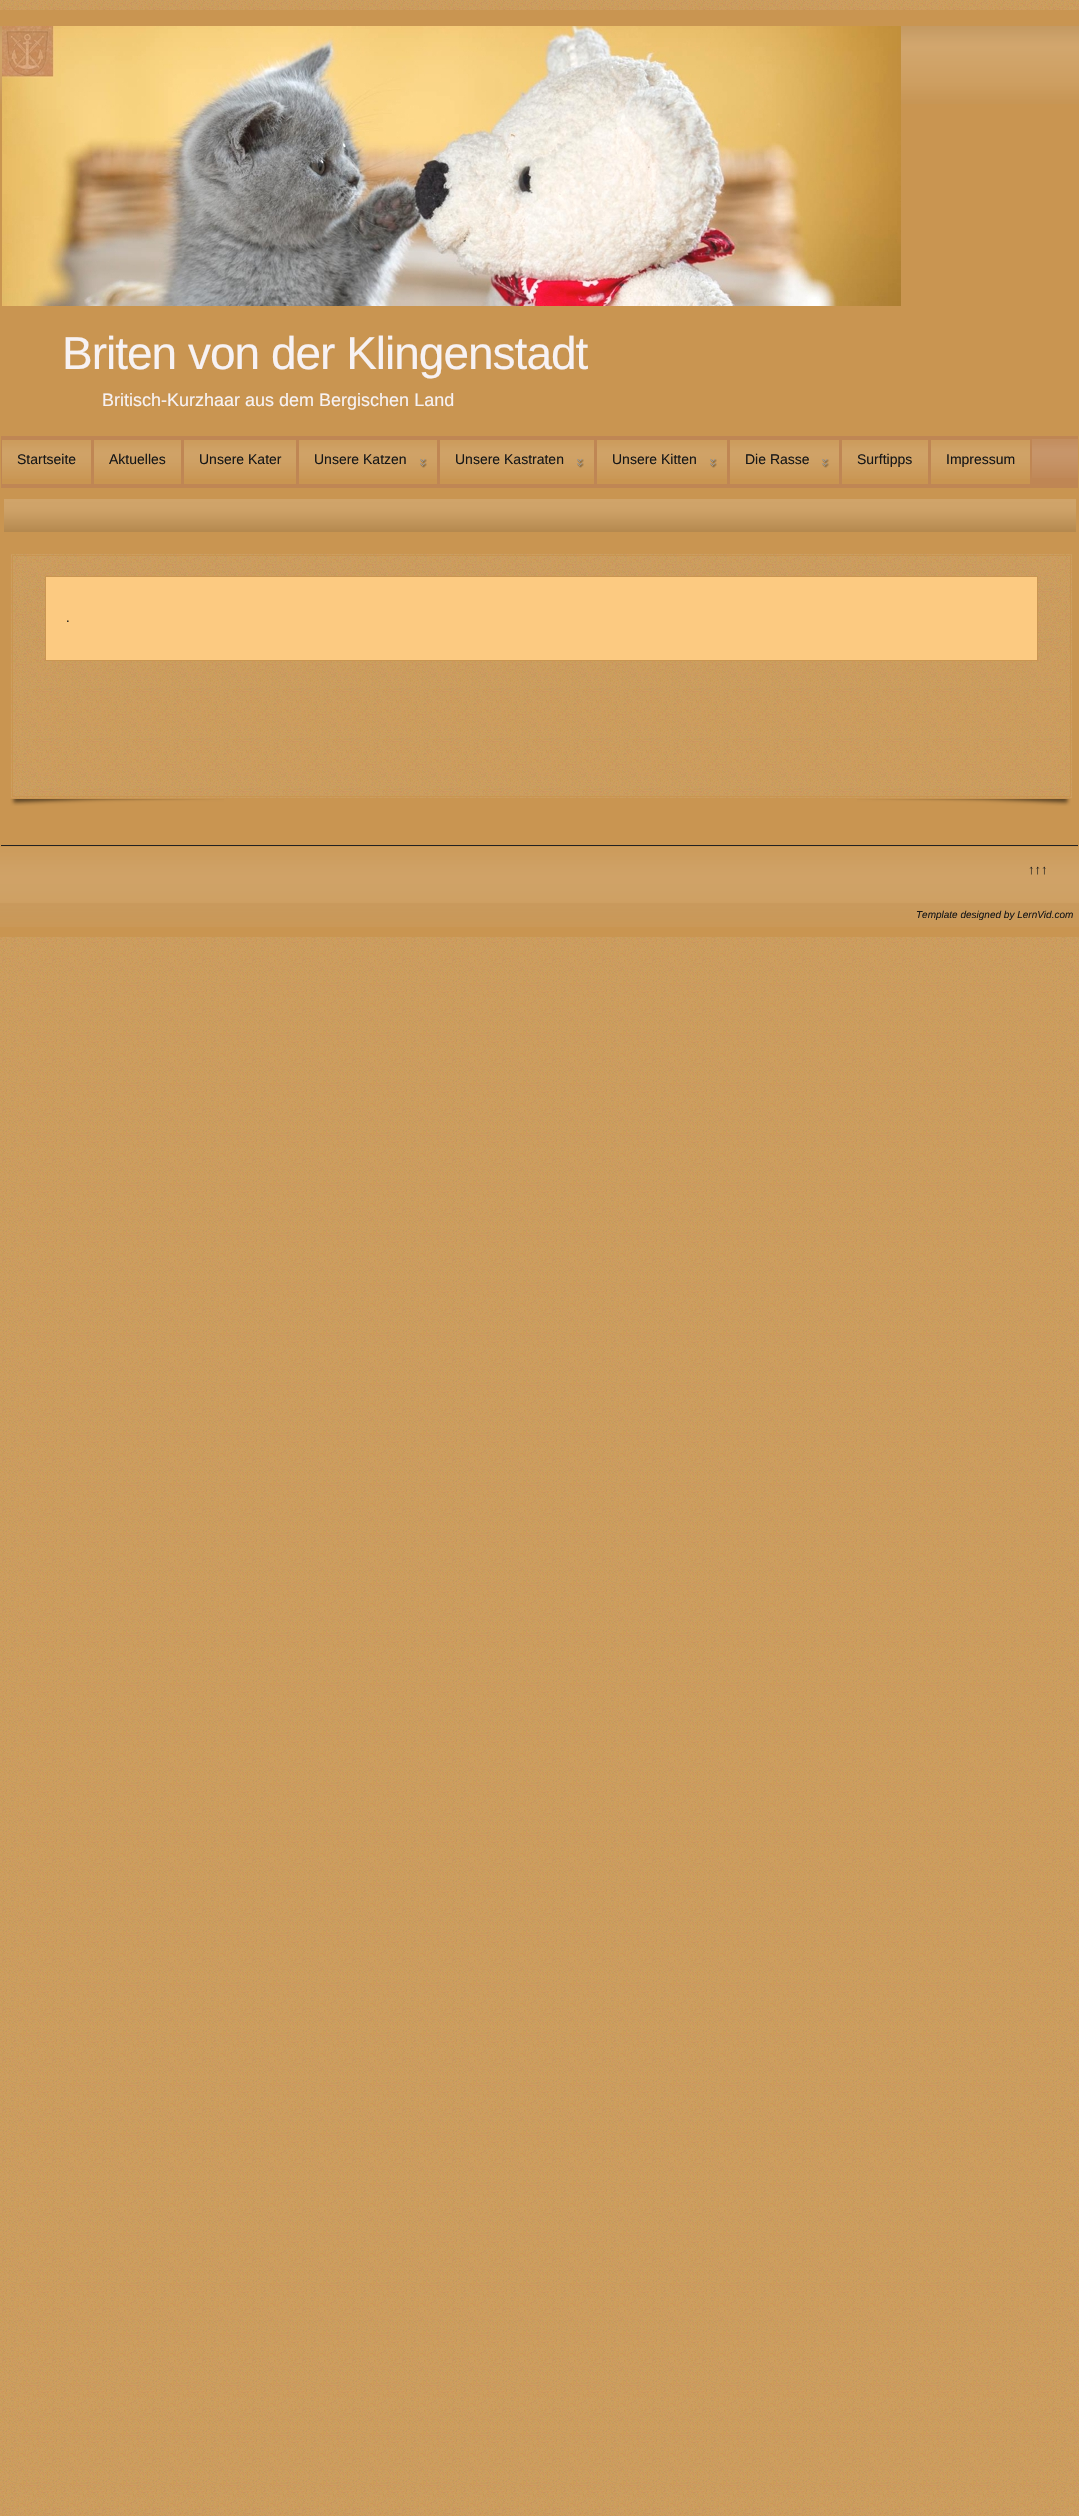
void draw(SkCanvas* canvas) {
    SkPaint paint;
    paint.setAntiAlias(true);
    auto face = [&](const char* family, int weight, float size, bool italic = false) {
        SkFontStyle style(weight, SkFontStyle::kNormal_Width,
            italic ? SkFontStyle::kItalic_Slant : SkFontStyle::kUpright_Slant);
        SkFont result(fontMgr->matchFamilyStyle(family, style), size);
        result.setSubpixel(true);
        return result;
    };
    auto write = [&](const char* s, float x, float y, const SkFont& font, SkColor color) {
        SkPaint ink(SkColor4f::FromColor(color));
        ink.setAntiAlias(true);
        canvas->drawString(s, x, y, font, ink);
    };
    auto writeSpaced = [&](const char* s, float x, float y, const SkFont& font, const SkPaint& ink, float letter, float word) {
        std::vector<SkGlyphID> glyphs(font.countText(s, strlen(s), SkTextEncoding::kUTF8));
        std::vector<float> xs(glyphs.size());
        font.textToGlyphs(s, strlen(s), SkTextEncoding::kUTF8, glyphs);
        font.getXPos(glyphs, xs, x);
        float extra = 0;
        for (size_t i = 0; i < glyphs.size(); i++) {
            xs[i] += extra;
            extra += letter + word * (glyphs[i] == font.unicharToGlyph(' '));
        }
        canvas->drawTextBlob(SkTextBlob::MakeFromPosHGlyphs(glyphs, xs, y, font), 0, 0, ink);
    };
    auto block = [&](float x, float y, float w, float h, SkColor color) {
        SkPaint ink(SkColor4f::FromColor(color));
        ink.setAntiAlias(true);
        canvas->drawRect(SkRect::MakeXYWH(x, y, w, h), ink);
    };
    auto paste = [&](const char* path, float x, float y, float w, float h) {
        auto image = SkImages::DeferredFromEncodedData(SkData::MakeFromFileName(path));
        canvas->drawImageRect(image, SkRect::MakeXYWH(x, y, w, h), SkSamplingOptions());
    };
    canvas->clear(SkColorSetRGB(201, 149, 81));
    paste("pic1.png", 0, 0, 1079, 2516);
    block(0, 10, 1079, 927, SkColorSetRGB(201, 149, 81));
    paste("pic2.png", 0, 26, 1079, 78);
    paste("pic3.png", 2, 26, 899, 280);
    auto kFont1 = face("Liberation Sans", 400, 46);
    paint.setColor(SkColorSetRGB(247, 242, 243));
    writeSpaced("Briten von der Klingenstadt", 62, 369, kFont1, paint, -1, 0);
    auto kFont2 = face("Liberation Sans", 400, 18);
    write("Britisch-Kurzhaar aus dem Bergischen Land", 102, 406, kFont2, SkColorSetRGB(247, 242, 243));
    block(1, 436, 1077, 52, SkColorSetRGB(191, 134, 84));
    paste("pic4.png", 1032, 439, 46, 39);
    block(2, 440, 89, 44, SkColorSetRGB(201, 149, 81));
    paste("pic5.png", 2, 440, 89, 39);
    auto kFont3 = face("Liberation Sans", 400, 14);
    write("Startseite", 17, 464, kFont3, SkColorSetRGB(23, 23, 23));
    block(94, 440, 87, 44, SkColorSetRGB(201, 149, 81));
    paste("pic6.png", 94, 440, 87, 39);
    write("Aktuelles", 109, 464, kFont3, SkColorSetRGB(23, 23, 23));
    block(184, 440, 112, 44, SkColorSetRGB(201, 149, 81));
    paste("pic7.png", 184, 440, 112, 39);
    write("Unsere Kater", 199, 464, kFont3, SkColorSetRGB(23, 23, 23));
    block(299, 440, 138, 44, SkColorSetRGB(201, 149, 81));
    paste("pic8.png", 299, 440, 138, 39);
    write("Unsere Katzen", 314, 464, kFont3, SkColorSetRGB(23, 23, 23));
    block(440, 440, 154, 44, SkColorSetRGB(201, 149, 81));
    paste("pic9.png", 440, 440, 154, 39);
    write("Unsere Kastraten", 455, 464, kFont3, SkColorSetRGB(23, 23, 23));
    block(597, 440, 130, 44, SkColorSetRGB(201, 149, 81));
    paste("pic10.png", 597, 440, 130, 39);
    write("Unsere Kitten", 612, 464, kFont3, SkColorSetRGB(23, 23, 23));
    block(730, 440, 109, 44, SkColorSetRGB(201, 149, 81));
    paste("pic11.png", 730, 440, 109, 39);
    write("Die Rasse", 745, 464, kFont3, SkColorSetRGB(23, 23, 23));
    block(842, 440, 86, 44, SkColorSetRGB(201, 149, 81));
    paste("pic12.png", 842, 440, 86, 39);
    write("Surftipps", 857, 464, kFont3, SkColorSetRGB(23, 23, 23));
    block(931, 440, 99, 44, SkColorSetRGB(201, 149, 81));
    paste("pic13.png", 931, 440, 99, 39);
    write("Impressum", 946, 464, kFont3, SkColorSetRGB(23, 23, 23));
    paste("pic14.png", 4, 499, 1072, 33);
    paste("pic15.png", 11, 554, 1061, 244);
    paint.setStyle(SkPaint::kStroke_Style);
    paint.setStrokeWidth(1);
    paint.setColor(SkColorSetRGB(201, 149, 81));
    canvas->drawRect(SkRect::MakeXYWH(12.5f, 555.5f, 1058, 241), paint);
    paint.setStyle(SkPaint::kFill_Style);
    paint.setColor(SkColorSetRGB(252, 202, 129));
    canvas->drawRect(SkRect::MakeXYWH(45.5f, 576.5f, 992, 84), paint);
    paint.setStyle(SkPaint::kStroke_Style);
    paint.setColor(SkColorSetRGB(201, 149, 81));
    canvas->drawRect(SkRect::MakeXYWH(45.5f, 576.5f, 992, 84), paint);
    auto kFont4 = face("Liberation Sans", 400, 13);
    write(".", 66, 622, kFont4, SkColorSetRGB(23, 23, 23));
    paste("pic16.png", 10, 799, 214, 7);
    paste("pic17.png", 857, 799, 214, 7);
    block(1, 845, 1077, 1, SkColorSetRGB(34, 34, 34));
    paste("pic18.png", 0, 847, 1079, 80);
    write("↑↑↑", 1028, 874, kFont4, SkColorSetRGB(23, 23, 23));
    auto kFont5 = face("Liberation Sans", 400, 10, true);
    write("Template designed by LernVid.com", 916, 918, kFont5, SkColorSetRGB(23, 23, 23));
}
